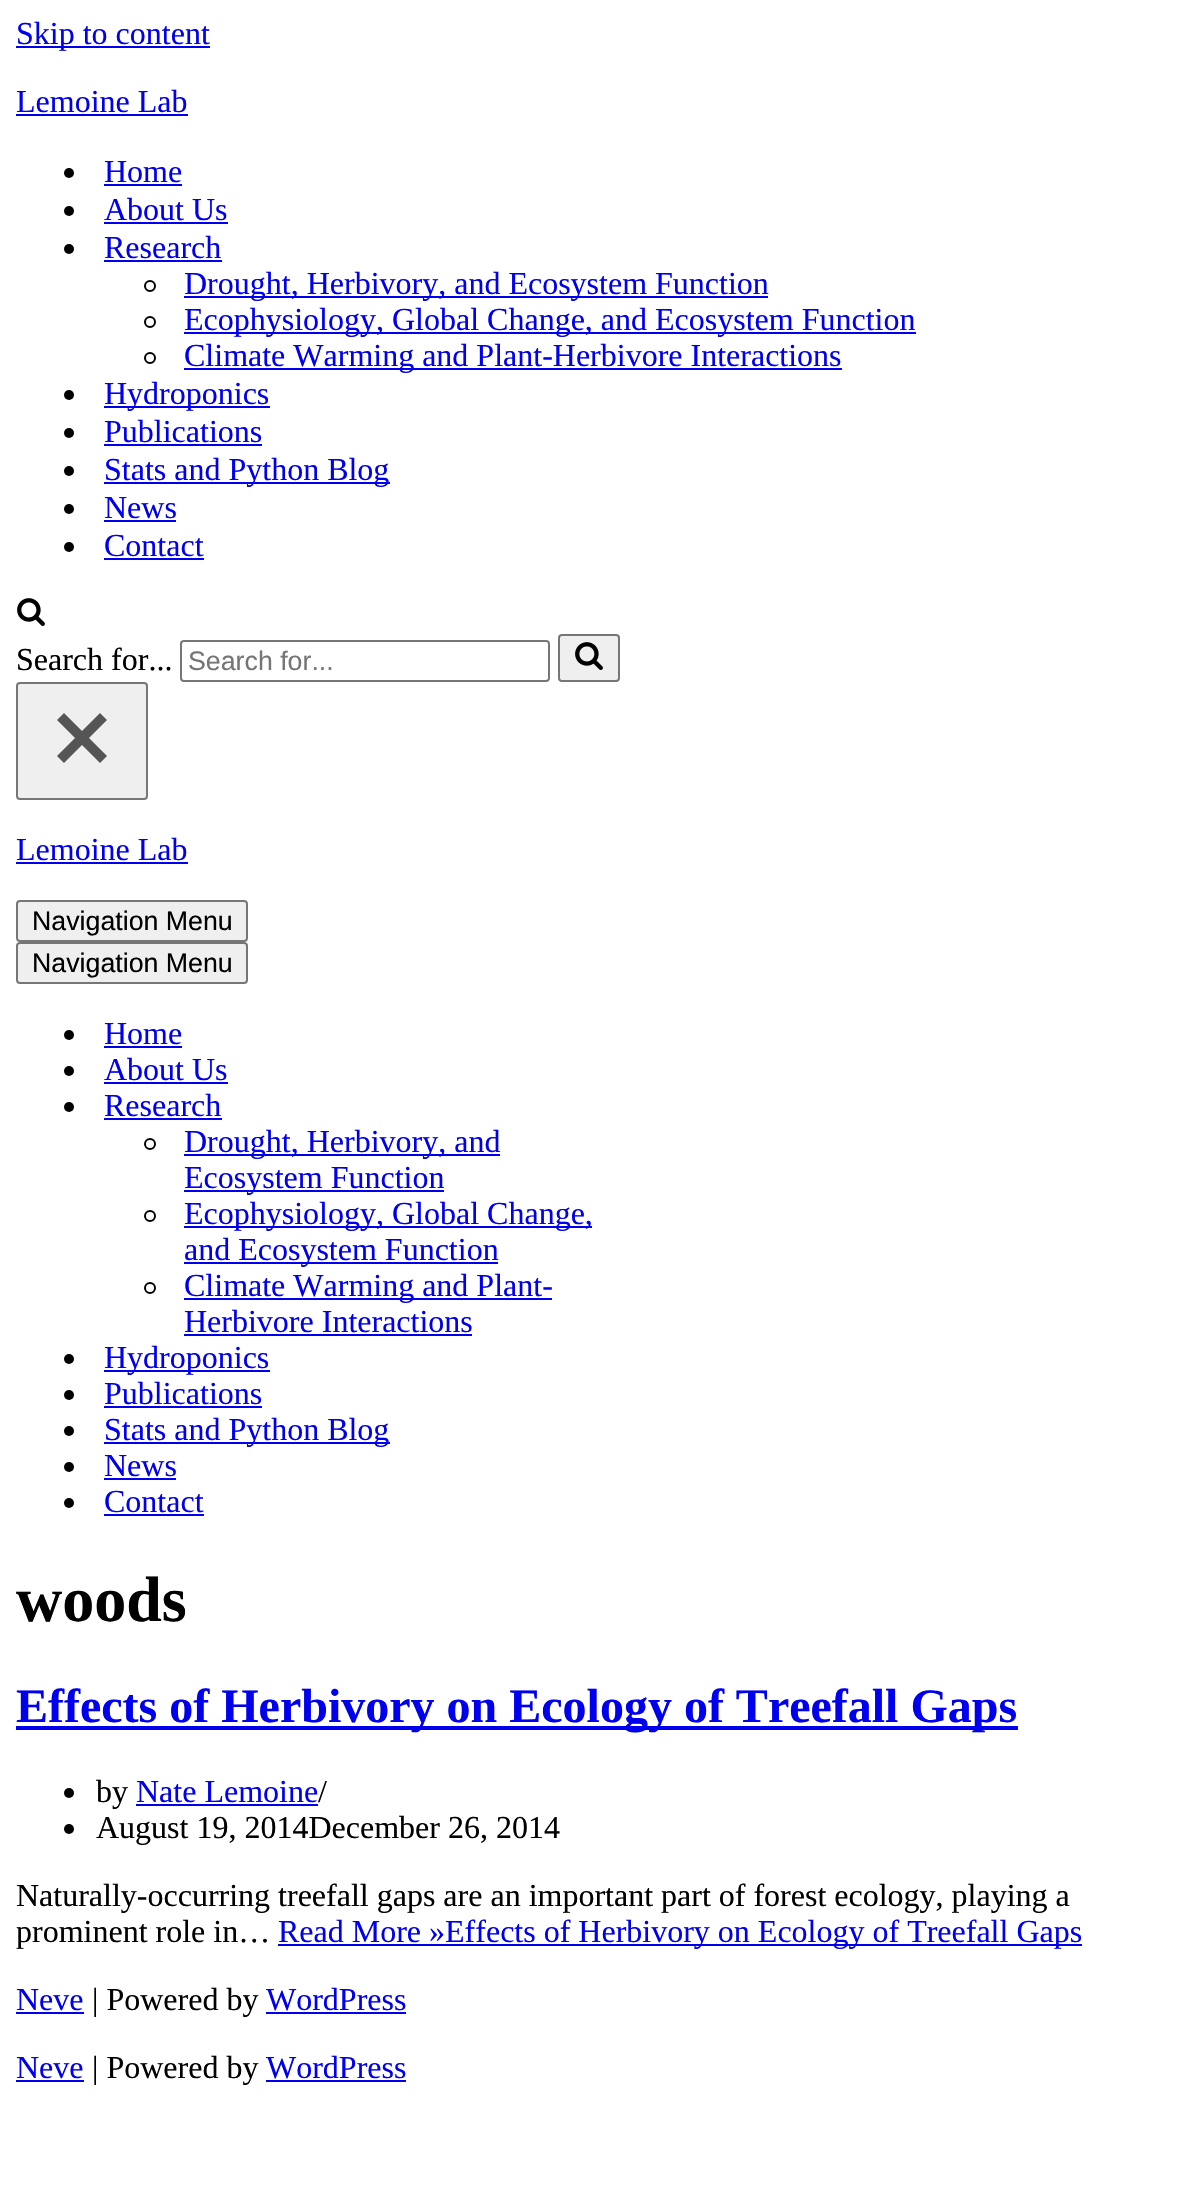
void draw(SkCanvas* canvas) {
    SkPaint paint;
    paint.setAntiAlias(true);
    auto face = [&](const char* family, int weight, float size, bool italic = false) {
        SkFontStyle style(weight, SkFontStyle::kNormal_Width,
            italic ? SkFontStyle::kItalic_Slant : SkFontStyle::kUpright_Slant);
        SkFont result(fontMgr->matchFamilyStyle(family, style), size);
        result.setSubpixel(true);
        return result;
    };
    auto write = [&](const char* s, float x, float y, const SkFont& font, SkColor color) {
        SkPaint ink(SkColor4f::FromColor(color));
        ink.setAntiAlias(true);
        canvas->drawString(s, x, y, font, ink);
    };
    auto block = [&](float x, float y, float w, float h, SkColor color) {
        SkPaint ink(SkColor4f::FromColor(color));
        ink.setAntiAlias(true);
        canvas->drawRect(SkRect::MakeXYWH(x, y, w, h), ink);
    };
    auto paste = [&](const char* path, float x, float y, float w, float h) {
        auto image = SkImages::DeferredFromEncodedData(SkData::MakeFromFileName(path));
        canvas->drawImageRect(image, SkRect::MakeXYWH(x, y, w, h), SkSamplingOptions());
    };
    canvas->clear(SK_ColorWHITE);
    block(16, 46, 194, 2, SkColorSetRGB(0, 0, 238));
    auto kFont1 = face("Liberation Serif", 400, 32);
    write("Skip to content", 16, 44, kFont1, SkColorSetRGB(0, 0, 238));
    write("Lemoine Lab", 16, 112, kFont1, SkColorSetRGB(0, 0, 238));
    block(16, 114, 172, 2, SkColorSetRGB(0, 0, 238));
    paint.setColor(SK_ColorBLACK);
    canvas->drawCircle(69, 173, 5, paint);
    write("Home", 104, 182, kFont1, SkColorSetRGB(0, 0, 238));
    block(104, 184, 78, 2, SkColorSetRGB(0, 0, 238));
    canvas->drawCircle(69, 211, 5, paint);
    write("About Us", 104, 220, kFont1, SkColorSetRGB(0, 0, 238));
    block(104, 222, 124, 2, SkColorSetRGB(0, 0, 238));
    canvas->drawCircle(69, 249, 5, paint);
    write("Research", 104, 258, kFont1, SkColorSetRGB(0, 0, 238));
    block(104, 260, 118, 2, SkColorSetRGB(0, 0, 238));
    paint.setStyle(SkPaint::kStroke_Style);
    paint.setStrokeWidth(2);
    canvas->drawCircle(150, 286, 5, paint);
    block(184, 296, 584, 2, SkColorSetRGB(0, 0, 238));
    write("Drought, Herbivory, and Ecosystem Function", 184, 294, kFont1, SkColorSetRGB(0, 0, 238));
    canvas->drawCircle(150, 322, 5, paint);
    block(184, 332, 732, 2, SkColorSetRGB(0, 0, 238));
    write("Ecophysiology, Global Change, and Ecosystem Function", 184, 330, kFont1, SkColorSetRGB(0, 0, 238));
    canvas->drawCircle(150, 358, 5, paint);
    block(184, 368, 658, 2, SkColorSetRGB(0, 0, 238));
    write("Climate Warming and Plant-Herbivore Interactions", 184, 366, kFont1, SkColorSetRGB(0, 0, 238));
    paint.setStyle(SkPaint::kFill_Style);
    canvas->drawCircle(69, 395, 5, paint);
    block(104, 406, 166, 2, SkColorSetRGB(0, 0, 238));
    write("Hydroponics", 104, 404, kFont1, SkColorSetRGB(0, 0, 238));
    canvas->drawCircle(69, 433, 5, paint);
    write("Publications", 104, 442, kFont1, SkColorSetRGB(0, 0, 238));
    block(104, 444, 158, 2, SkColorSetRGB(0, 0, 238));
    canvas->drawCircle(69, 471, 5, paint);
    block(104, 482, 286, 2, SkColorSetRGB(0, 0, 238));
    write("Stats and Python Blog", 104, 480, kFont1, SkColorSetRGB(0, 0, 238));
    canvas->drawCircle(69, 509, 5, paint);
    write("News", 104, 518, kFont1, SkColorSetRGB(0, 0, 238));
    block(104, 520, 72, 2, SkColorSetRGB(0, 0, 238));
    canvas->drawCircle(69, 547, 5, paint);
    write("Contact", 104, 556, kFont1, SkColorSetRGB(0, 0, 238));
    block(104, 558, 100, 2, SkColorSetRGB(0, 0, 238));
    paste("pic1.png", 17, 598, 28, 28);
    write("Search for...", 16, 670, kFont1, SK_ColorBLACK);
    paint.setStyle(SkPaint::kStroke_Style);
    paint.setColor(SkColorSetRGB(118, 118, 118));
    canvas->drawRoundRect(SkRect::MakeXYWH(181, 641, 368, 40), 3, 3, paint);
    auto kFont2 = face("Liberation Sans", 400, 26.75f);
    write("Search for...", 188, 670, kFont2, SkColorSetRGB(117, 117, 117));
    paint.setStyle(SkPaint::kFill_Style);
    paint.setColor(SkColorSetRGB(239, 239, 239));
    canvas->drawRoundRect(SkRect::MakeXYWH(559, 635, 60, 46), 3, 3, paint);
    paint.setStyle(SkPaint::kStroke_Style);
    paint.setColor(SkColorSetRGB(118, 118, 118));
    canvas->drawRoundRect(SkRect::MakeXYWH(559, 635, 60, 46), 3, 3, paint);
    paste("pic2.png", 575, 642, 28, 28);
    paint.setStyle(SkPaint::kFill_Style);
    paint.setColor(SkColorSetRGB(239, 239, 239));
    canvas->drawRoundRect(SkRect::MakeXYWH(17, 683, 130, 116), 3, 3, paint);
    paint.setStyle(SkPaint::kStroke_Style);
    paint.setColor(SkColorSetRGB(118, 118, 118));
    canvas->drawRoundRect(SkRect::MakeXYWH(17, 683, 130, 116), 3, 3, paint);
    paint.setStyle(SkPaint::kFill_Style);
    paint.setColor(SkColorSetRGB(85, 85, 85));
    canvas->drawPath(SkPathBuilder().moveTo(107, 720).lineTo(89, 738).lineTo(107, 756).lineTo(100, 763).lineTo(82, 745).lineTo(64, 763).lineTo(57, 756).lineTo(75, 738).lineTo(57, 720).lineTo(64, 713).lineTo(82, 731).lineTo(100, 713).close().detach(), paint);
    write("Lemoine Lab", 16, 860, kFont1, SkColorSetRGB(0, 0, 238));
    block(16, 862, 172, 2, SkColorSetRGB(0, 0, 238));
    paint.setColor(SkColorSetRGB(239, 239, 239));
    canvas->drawRoundRect(SkRect::MakeXYWH(17, 901, 230, 40), 3, 3, paint);
    paint.setStyle(SkPaint::kStroke_Style);
    paint.setColor(SkColorSetRGB(118, 118, 118));
    canvas->drawRoundRect(SkRect::MakeXYWH(17, 901, 230, 40), 3, 3, paint);
    write("Navigation Menu", 32, 930, kFont2, SK_ColorBLACK);
    paint.setStyle(SkPaint::kFill_Style);
    paint.setColor(SkColorSetRGB(239, 239, 239));
    canvas->drawRoundRect(SkRect::MakeXYWH(17, 943, 230, 40), 3, 3, paint);
    paint.setStyle(SkPaint::kStroke_Style);
    paint.setColor(SkColorSetRGB(118, 118, 118));
    canvas->drawRoundRect(SkRect::MakeXYWH(17, 943, 230, 40), 3, 3, paint);
    write("Navigation Menu", 32, 972, kFont2, SK_ColorBLACK);
    paint.setStyle(SkPaint::kFill_Style);
    paint.setColor(SK_ColorBLACK);
    canvas->drawCircle(69, 1035, 5, paint);
    write("Home", 104, 1044, kFont1, SkColorSetRGB(0, 0, 238));
    block(104, 1046, 78, 2, SkColorSetRGB(0, 0, 238));
    canvas->drawCircle(69, 1071, 5, paint);
    write("About Us", 104, 1080, kFont1, SkColorSetRGB(0, 0, 238));
    block(104, 1082, 124, 2, SkColorSetRGB(0, 0, 238));
    canvas->drawCircle(69, 1107, 5, paint);
    write("Research", 104, 1116, kFont1, SkColorSetRGB(0, 0, 238));
    block(104, 1118, 118, 2, SkColorSetRGB(0, 0, 238));
    paint.setStyle(SkPaint::kStroke_Style);
    canvas->drawCircle(150, 1144, 5, paint);
    block(184, 1154, 316, 2, SkColorSetRGB(0, 0, 238));
    write("Drought, Herbivory, and", 184, 1152, kFont1, SkColorSetRGB(0, 0, 238));
    block(184, 1190, 260, 2, SkColorSetRGB(0, 0, 238));
    write("Ecosystem Function", 184, 1188, kFont1, SkColorSetRGB(0, 0, 238));
    canvas->drawCircle(150, 1216, 5, paint);
    block(184, 1226, 408, 2, SkColorSetRGB(0, 0, 238));
    write("Ecophysiology, Global Change,", 184, 1224, kFont1, SkColorSetRGB(0, 0, 238));
    block(184, 1262, 314, 2, SkColorSetRGB(0, 0, 238));
    write("and Ecosystem Function", 184, 1260, kFont1, SkColorSetRGB(0, 0, 238));
    canvas->drawCircle(150, 1288, 5, paint);
    block(184, 1298, 368, 2, SkColorSetRGB(0, 0, 238));
    write("Climate Warming and Plant-", 184, 1296, kFont1, SkColorSetRGB(0, 0, 238));
    write("Herbivore Interactions", 184, 1332, kFont1, SkColorSetRGB(0, 0, 238));
    block(184, 1334, 288, 2, SkColorSetRGB(0, 0, 238));
    paint.setStyle(SkPaint::kFill_Style);
    canvas->drawCircle(69, 1359, 5, paint);
    block(104, 1370, 166, 2, SkColorSetRGB(0, 0, 238));
    write("Hydroponics", 104, 1368, kFont1, SkColorSetRGB(0, 0, 238));
    canvas->drawCircle(69, 1395, 5, paint);
    write("Publications", 104, 1404, kFont1, SkColorSetRGB(0, 0, 238));
    block(104, 1406, 158, 2, SkColorSetRGB(0, 0, 238));
    canvas->drawCircle(69, 1431, 5, paint);
    block(104, 1442, 286, 2, SkColorSetRGB(0, 0, 238));
    write("Stats and Python Blog", 104, 1440, kFont1, SkColorSetRGB(0, 0, 238));
    canvas->drawCircle(69, 1467, 5, paint);
    write("News", 104, 1476, kFont1, SkColorSetRGB(0, 0, 238));
    block(104, 1478, 72, 2, SkColorSetRGB(0, 0, 238));
    canvas->drawCircle(69, 1503, 5, paint);
    write("Contact", 104, 1512, kFont1, SkColorSetRGB(0, 0, 238));
    block(104, 1514, 100, 2, SkColorSetRGB(0, 0, 238));
    auto kFont3 = face("Liberation Serif", 700, 64);
    write("woods", 16, 1621, kFont3, SK_ColorBLACK);
    block(16, 1726, 1002, 4, SkColorSetRGB(0, 0, 238));
    auto kFont4 = face("Liberation Serif", 700, 48);
    write("Effects of Herbivory on Ecology of Treefall Gaps", 16, 1722, kFont4, SkColorSetRGB(0, 0, 238));
    canvas->drawCircle(69, 1793, 5, paint);
    write("by", 96, 1802, kFont1, SK_ColorBLACK);
    write("Nate Lemoine", 136, 1802, kFont1, SkColorSetRGB(0, 0, 238));
    block(136, 1804, 182, 2, SkColorSetRGB(0, 0, 238));
    write("/", 318, 1802, kFont1, SK_ColorBLACK);
    canvas->drawCircle(69, 1829, 5, paint);
    write("August 19, 2014December 26, 2014", 96, 1838, kFont1, SK_ColorBLACK);
    write("Naturally-occurring treefall gaps are an important part of forest ecology, playing a", 16, 1906, kFont1, SK_ColorBLACK);
    write("prominent role in…", 16, 1942, kFont1, SK_ColorBLACK);
    block(278, 1944, 804, 2, SkColorSetRGB(0, 0, 238));
    write("Read More »Effects of Herbivory on Ecology of Treefall Gaps", 278, 1942, kFont1, SkColorSetRGB(0, 0, 238));
    write("Neve", 16, 2010, kFont1, SkColorSetRGB(0, 0, 238));
    block(16, 2012, 68, 2, SkColorSetRGB(0, 0, 238));
    write("| Powered by", 92, 2010, kFont1, SK_ColorBLACK);
    write("WordPress", 266, 2010, kFont1, SkColorSetRGB(0, 0, 238));
    block(266, 2012, 140, 2, SkColorSetRGB(0, 0, 238));
    write("Neve", 16, 2078, kFont1, SkColorSetRGB(0, 0, 238));
    block(16, 2080, 68, 2, SkColorSetRGB(0, 0, 238));
    write("| Powered by", 92, 2078, kFont1, SK_ColorBLACK);
    write("WordPress", 266, 2078, kFont1, SkColorSetRGB(0, 0, 238));
    block(266, 2080, 140, 2, SkColorSetRGB(0, 0, 238));
}
